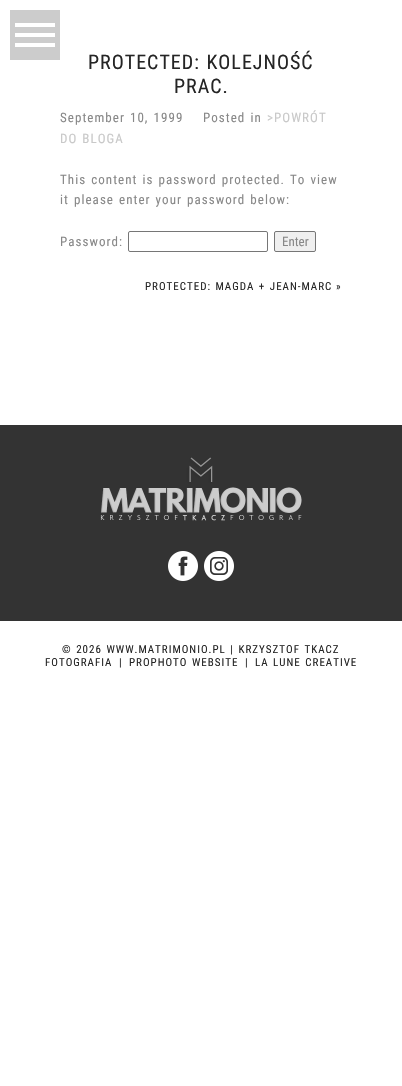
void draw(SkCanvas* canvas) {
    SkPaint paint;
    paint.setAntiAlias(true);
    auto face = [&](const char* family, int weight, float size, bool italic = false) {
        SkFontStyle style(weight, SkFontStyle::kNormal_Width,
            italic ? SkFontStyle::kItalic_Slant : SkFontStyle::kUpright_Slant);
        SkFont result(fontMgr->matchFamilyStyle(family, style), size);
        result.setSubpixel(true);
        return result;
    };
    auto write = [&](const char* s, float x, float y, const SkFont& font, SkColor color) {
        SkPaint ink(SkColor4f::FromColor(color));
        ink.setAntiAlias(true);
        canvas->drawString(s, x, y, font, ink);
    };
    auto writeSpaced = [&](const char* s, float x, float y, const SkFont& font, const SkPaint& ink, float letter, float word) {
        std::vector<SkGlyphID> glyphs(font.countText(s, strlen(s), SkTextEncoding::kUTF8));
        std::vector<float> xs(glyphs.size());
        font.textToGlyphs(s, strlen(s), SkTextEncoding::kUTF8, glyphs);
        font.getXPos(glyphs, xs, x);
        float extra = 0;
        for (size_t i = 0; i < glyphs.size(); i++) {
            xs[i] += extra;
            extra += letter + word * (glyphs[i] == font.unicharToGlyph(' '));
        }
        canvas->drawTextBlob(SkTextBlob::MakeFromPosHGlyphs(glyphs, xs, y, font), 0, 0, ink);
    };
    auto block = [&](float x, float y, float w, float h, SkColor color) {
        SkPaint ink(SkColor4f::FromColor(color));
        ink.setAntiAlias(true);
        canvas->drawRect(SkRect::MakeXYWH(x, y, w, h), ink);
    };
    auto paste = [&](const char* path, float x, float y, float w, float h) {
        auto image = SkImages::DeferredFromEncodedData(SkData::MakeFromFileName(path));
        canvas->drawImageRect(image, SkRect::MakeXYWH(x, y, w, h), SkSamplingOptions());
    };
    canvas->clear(SK_ColorWHITE);
    block(10, 10, 50, 50, SkColorSetRGB(204, 204, 204));
    block(15, 33, 40, 4, SK_ColorWHITE);
    block(15, 23, 40, 4, SK_ColorWHITE);
    block(15, 43, 40, 4, SK_ColorWHITE);
    auto kFont1 = face("Roboto Condensed", 400, 20);
    paint.setColor(SkColorSetRGB(37, 37, 37));
    writeSpaced("PROTECTED: KOLEJNOŚĆ", 88, 69, kFont1, paint, 1, 1);
    writeSpaced("PRAC.", 174, 93, kFont1, paint, 1, 0);
    auto kFont2 = face("Roboto Condensed", 400, 13);
    paint.setColor(SkColorSetRGB(136, 136, 136));
    writeSpaced("September 10, 1999", 60, 122, kFont2, paint, 1.05f, 1);
    writeSpaced("Posted in", 203, 122, kFont2, paint, 1.05f, 1);
    paint.setColor(SkColorSetRGB(201, 201, 201));
    writeSpaced(">POWRÓT", 267, 122, kFont2, paint, 1.05f, 0);
    writeSpaced("DO BLOGA", 60, 143, kFont2, paint, 1.05f, 1);
    paint.setColor(SkColorSetRGB(136, 136, 136));
    writeSpaced("This content is password protected. To view", 60, 184, kFont2, paint, 1.05f, 1);
    writeSpaced("it please enter your password below:", 60, 204, kFont2, paint, 1.05f, 1);
    writeSpaced("Password:", 60, 246, kFont2, paint, 1.05f, 0);
    paint.setStyle(SkPaint::kStroke_Style);
    paint.setStrokeWidth(1);
    paint.setColor(SkColorSetRGB(118, 118, 118));
    canvas->drawRoundRect(SkRect::MakeXYWH(128.5f, 231.5f, 139, 20), 1.5f, 1.5f, paint);
    paint.setStyle(SkPaint::kFill_Style);
    paint.setColor(SkColorSetRGB(239, 239, 239));
    canvas->drawRoundRect(SkRect::MakeXYWH(274.5f, 231.5f, 41, 20), 1.5f, 1.5f, paint);
    paint.setStyle(SkPaint::kStroke_Style);
    paint.setColor(SkColorSetRGB(118, 118, 118));
    canvas->drawRoundRect(SkRect::MakeXYWH(274.5f, 231.5f, 41, 20), 1.5f, 1.5f, paint);
    write("Enter", 282, 246, kFont2, SkColorSetRGB(136, 136, 136));
    auto kFont3 = face("Roboto Condensed", 400, 11);
    paint.setStyle(SkPaint::kFill_Style);
    paint.setColor(SkColorSetRGB(37, 37, 37));
    writeSpaced("PROTECTED: MAGDA + JEAN-MARC", 145, 290, kFont3, paint, 1, 1);
    writeSpaced("»", 336, 290, kFont3, paint, 1, 0);
    block(0, 425, 402, 196, SkColorSetRGB(51, 51, 51));
    paste("pic1.png", 100, 457, 202, 64);
    paste("pic2.png", 168, 551, 30, 30);
    paste("pic3.png", 204, 551, 30, 30);
    writeSpaced("© 2026 WWW.MATRIMONIO.PL | KRZYSZTOF TKACZ", 62, 653, kFont3, paint, 1, 1);
    writeSpaced("FOTOGRAFIA", 45, 666, kFont3, paint, 1, 0);
    writeSpaced("|", 119, 666, kFont3, paint, 1, 0);
    writeSpaced("PROPHOTO WEBSITE", 129, 666, kFont3, paint, 1, 1);
    writeSpaced("|", 245, 666, kFont3, paint, 1, 0);
    writeSpaced("LA LUNE CREATIVE", 255, 666, kFont3, paint, 1, 1);
}
